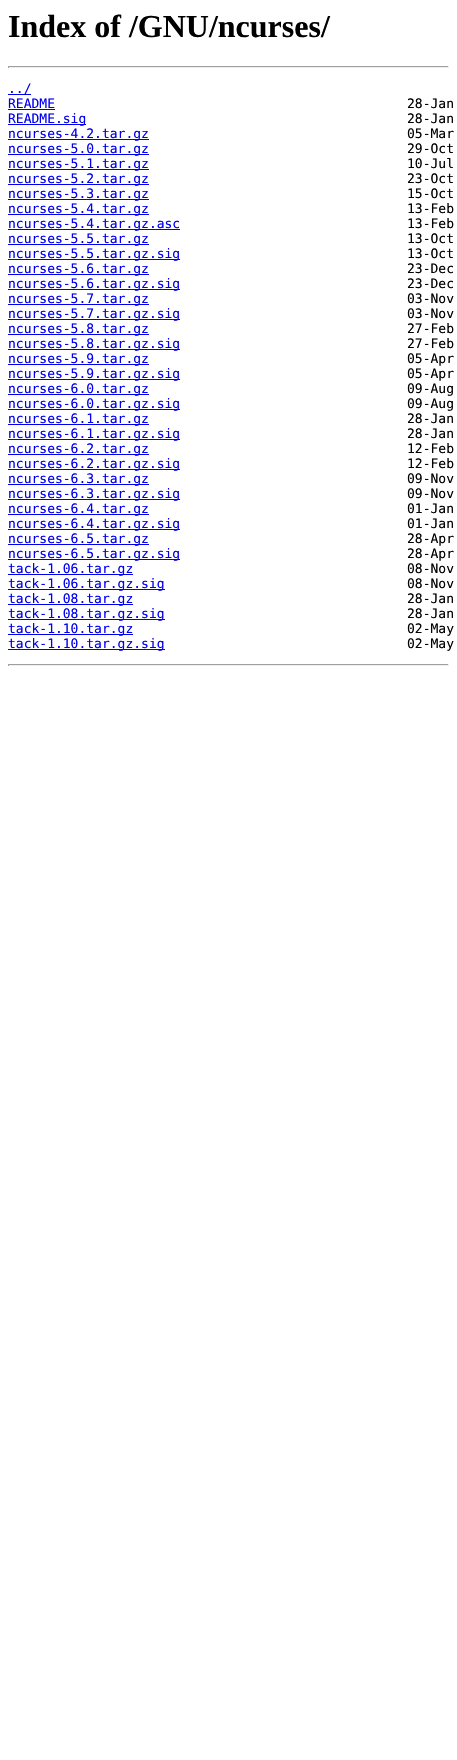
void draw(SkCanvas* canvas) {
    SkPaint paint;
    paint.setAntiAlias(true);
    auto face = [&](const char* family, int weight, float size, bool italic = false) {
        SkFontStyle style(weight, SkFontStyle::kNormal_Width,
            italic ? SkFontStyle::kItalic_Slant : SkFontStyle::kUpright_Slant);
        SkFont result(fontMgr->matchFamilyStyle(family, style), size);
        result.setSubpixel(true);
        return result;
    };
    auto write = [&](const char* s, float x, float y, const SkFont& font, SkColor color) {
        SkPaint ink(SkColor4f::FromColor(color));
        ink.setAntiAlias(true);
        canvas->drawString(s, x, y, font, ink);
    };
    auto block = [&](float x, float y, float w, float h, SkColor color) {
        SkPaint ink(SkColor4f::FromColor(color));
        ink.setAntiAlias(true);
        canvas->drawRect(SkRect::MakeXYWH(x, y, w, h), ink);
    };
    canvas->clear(SK_ColorWHITE);
    auto kFont1 = face("Liberation Serif", 700, 32);
    write("Index of /GNU/ncurses/", 8, 37, kFont1, SK_ColorBLACK);
    block(8, 66, 441, 1, SkColorSetRGB(159, 159, 159));
    block(448, 66, 1, 2, SkColorSetRGB(238, 238, 238));
    block(8, 67, 441, 1, SkColorSetRGB(238, 238, 238));
    block(8, 66, 1, 2, SkColorSetRGB(159, 159, 159));
    block(8, 94, 23, 1, SkColorSetRGB(0, 0, 238));
    auto kFont2 = face("DejaVu Sans Mono", 400, 13);
    write("../", 8, 93, kFont2, SkColorSetRGB(0, 0, 238));
    write("README", 8, 108, kFont2, SkColorSetRGB(0, 0, 238));
    block(8, 109, 47, 1, SkColorSetRGB(0, 0, 238));
    write("28-Jan", 407, 108, kFont2, SK_ColorBLACK);
    block(8, 124, 78, 1, SkColorSetRGB(0, 0, 238));
    write("README.sig", 8, 123, kFont2, SkColorSetRGB(0, 0, 238));
    write("28-Jan", 407, 123, kFont2, SK_ColorBLACK);
    block(8, 139, 141, 1, SkColorSetRGB(0, 0, 238));
    write("ncurses-4.2.tar.gz", 8, 138, kFont2, SkColorSetRGB(0, 0, 238));
    write("05-Mar", 407, 138, kFont2, SK_ColorBLACK);
    block(8, 154, 141, 1, SkColorSetRGB(0, 0, 238));
    write("ncurses-5.0.tar.gz", 8, 153, kFont2, SkColorSetRGB(0, 0, 238));
    write("29-Oct", 407, 153, kFont2, SK_ColorBLACK);
    block(8, 169, 141, 1, SkColorSetRGB(0, 0, 238));
    write("ncurses-5.1.tar.gz", 8, 168, kFont2, SkColorSetRGB(0, 0, 238));
    write("10-Jul", 407, 168, kFont2, SK_ColorBLACK);
    block(8, 184, 141, 1, SkColorSetRGB(0, 0, 238));
    write("ncurses-5.2.tar.gz", 8, 183, kFont2, SkColorSetRGB(0, 0, 238));
    write("23-Oct", 407, 183, kFont2, SK_ColorBLACK);
    block(8, 199, 141, 1, SkColorSetRGB(0, 0, 238));
    write("ncurses-5.3.tar.gz", 8, 198, kFont2, SkColorSetRGB(0, 0, 238));
    write("15-Oct", 407, 198, kFont2, SK_ColorBLACK);
    block(8, 214, 141, 1, SkColorSetRGB(0, 0, 238));
    write("ncurses-5.4.tar.gz", 8, 213, kFont2, SkColorSetRGB(0, 0, 238));
    write("13-Feb", 407, 213, kFont2, SK_ColorBLACK);
    block(8, 229, 172, 1, SkColorSetRGB(0, 0, 238));
    write("ncurses-5.4.tar.gz.asc", 8, 228, kFont2, SkColorSetRGB(0, 0, 238));
    write("13-Feb", 407, 228, kFont2, SK_ColorBLACK);
    block(8, 244, 141, 1, SkColorSetRGB(0, 0, 238));
    write("ncurses-5.5.tar.gz", 8, 243, kFont2, SkColorSetRGB(0, 0, 238));
    write("13-Oct", 407, 243, kFont2, SK_ColorBLACK);
    block(8, 259, 172, 1, SkColorSetRGB(0, 0, 238));
    write("ncurses-5.5.tar.gz.sig", 8, 258, kFont2, SkColorSetRGB(0, 0, 238));
    write("13-Oct", 407, 258, kFont2, SK_ColorBLACK);
    block(8, 274, 141, 1, SkColorSetRGB(0, 0, 238));
    write("ncurses-5.6.tar.gz", 8, 273, kFont2, SkColorSetRGB(0, 0, 238));
    write("23-Dec", 407, 273, kFont2, SK_ColorBLACK);
    block(8, 289, 172, 1, SkColorSetRGB(0, 0, 238));
    write("ncurses-5.6.tar.gz.sig", 8, 288, kFont2, SkColorSetRGB(0, 0, 238));
    write("23-Dec", 407, 288, kFont2, SK_ColorBLACK);
    block(8, 304, 141, 1, SkColorSetRGB(0, 0, 238));
    write("ncurses-5.7.tar.gz", 8, 303, kFont2, SkColorSetRGB(0, 0, 238));
    write("03-Nov", 407, 303, kFont2, SK_ColorBLACK);
    block(8, 319, 172, 1, SkColorSetRGB(0, 0, 238));
    write("ncurses-5.7.tar.gz.sig", 8, 318, kFont2, SkColorSetRGB(0, 0, 238));
    write("03-Nov", 407, 318, kFont2, SK_ColorBLACK);
    block(8, 334, 141, 1, SkColorSetRGB(0, 0, 238));
    write("ncurses-5.8.tar.gz", 8, 333, kFont2, SkColorSetRGB(0, 0, 238));
    write("27-Feb", 407, 333, kFont2, SK_ColorBLACK);
    block(8, 349, 172, 1, SkColorSetRGB(0, 0, 238));
    write("ncurses-5.8.tar.gz.sig", 8, 348, kFont2, SkColorSetRGB(0, 0, 238));
    write("27-Feb", 407, 348, kFont2, SK_ColorBLACK);
    block(8, 364, 141, 1, SkColorSetRGB(0, 0, 238));
    write("ncurses-5.9.tar.gz", 8, 363, kFont2, SkColorSetRGB(0, 0, 238));
    write("05-Apr", 407, 363, kFont2, SK_ColorBLACK);
    block(8, 379, 172, 1, SkColorSetRGB(0, 0, 238));
    write("ncurses-5.9.tar.gz.sig", 8, 378, kFont2, SkColorSetRGB(0, 0, 238));
    write("05-Apr", 407, 378, kFont2, SK_ColorBLACK);
    block(8, 394, 141, 1, SkColorSetRGB(0, 0, 238));
    write("ncurses-6.0.tar.gz", 8, 393, kFont2, SkColorSetRGB(0, 0, 238));
    write("09-Aug", 407, 393, kFont2, SK_ColorBLACK);
    block(8, 409, 172, 1, SkColorSetRGB(0, 0, 238));
    write("ncurses-6.0.tar.gz.sig", 8, 408, kFont2, SkColorSetRGB(0, 0, 238));
    write("09-Aug", 407, 408, kFont2, SK_ColorBLACK);
    block(8, 424, 141, 1, SkColorSetRGB(0, 0, 238));
    write("ncurses-6.1.tar.gz", 8, 423, kFont2, SkColorSetRGB(0, 0, 238));
    write("28-Jan", 407, 423, kFont2, SK_ColorBLACK);
    block(8, 439, 172, 1, SkColorSetRGB(0, 0, 238));
    write("ncurses-6.1.tar.gz.sig", 8, 438, kFont2, SkColorSetRGB(0, 0, 238));
    write("28-Jan", 407, 438, kFont2, SK_ColorBLACK);
    block(8, 454, 141, 1, SkColorSetRGB(0, 0, 238));
    write("ncurses-6.2.tar.gz", 8, 453, kFont2, SkColorSetRGB(0, 0, 238));
    write("12-Feb", 407, 453, kFont2, SK_ColorBLACK);
    block(8, 469, 172, 1, SkColorSetRGB(0, 0, 238));
    write("ncurses-6.2.tar.gz.sig", 8, 468, kFont2, SkColorSetRGB(0, 0, 238));
    write("12-Feb", 407, 468, kFont2, SK_ColorBLACK);
    block(8, 484, 141, 1, SkColorSetRGB(0, 0, 238));
    write("ncurses-6.3.tar.gz", 8, 483, kFont2, SkColorSetRGB(0, 0, 238));
    write("09-Nov", 407, 483, kFont2, SK_ColorBLACK);
    block(8, 499, 172, 1, SkColorSetRGB(0, 0, 238));
    write("ncurses-6.3.tar.gz.sig", 8, 498, kFont2, SkColorSetRGB(0, 0, 238));
    write("09-Nov", 407, 498, kFont2, SK_ColorBLACK);
    block(8, 514, 141, 1, SkColorSetRGB(0, 0, 238));
    write("ncurses-6.4.tar.gz", 8, 513, kFont2, SkColorSetRGB(0, 0, 238));
    write("01-Jan", 407, 513, kFont2, SK_ColorBLACK);
    block(8, 529, 172, 1, SkColorSetRGB(0, 0, 238));
    write("ncurses-6.4.tar.gz.sig", 8, 528, kFont2, SkColorSetRGB(0, 0, 238));
    write("01-Jan", 407, 528, kFont2, SK_ColorBLACK);
    block(8, 544, 141, 1, SkColorSetRGB(0, 0, 238));
    write("ncurses-6.5.tar.gz", 8, 543, kFont2, SkColorSetRGB(0, 0, 238));
    write("28-Apr", 407, 543, kFont2, SK_ColorBLACK);
    block(8, 559, 172, 1, SkColorSetRGB(0, 0, 238));
    write("ncurses-6.5.tar.gz.sig", 8, 558, kFont2, SkColorSetRGB(0, 0, 238));
    write("28-Apr", 407, 558, kFont2, SK_ColorBLACK);
    block(8, 574, 125, 1, SkColorSetRGB(0, 0, 238));
    write("tack-1.06.tar.gz", 8, 573, kFont2, SkColorSetRGB(0, 0, 238));
    write("08-Nov", 407, 573, kFont2, SK_ColorBLACK);
    block(8, 589, 157, 1, SkColorSetRGB(0, 0, 238));
    write("tack-1.06.tar.gz.sig", 8, 588, kFont2, SkColorSetRGB(0, 0, 238));
    write("08-Nov", 407, 588, kFont2, SK_ColorBLACK);
    block(8, 604, 125, 1, SkColorSetRGB(0, 0, 238));
    write("tack-1.08.tar.gz", 8, 603, kFont2, SkColorSetRGB(0, 0, 238));
    write("28-Jan", 407, 603, kFont2, SK_ColorBLACK);
    block(8, 619, 157, 1, SkColorSetRGB(0, 0, 238));
    write("tack-1.08.tar.gz.sig", 8, 618, kFont2, SkColorSetRGB(0, 0, 238));
    write("28-Jan", 407, 618, kFont2, SK_ColorBLACK);
    block(8, 634, 125, 1, SkColorSetRGB(0, 0, 238));
    write("tack-1.10.tar.gz", 8, 633, kFont2, SkColorSetRGB(0, 0, 238));
    write("02-May", 407, 633, kFont2, SK_ColorBLACK);
    block(8, 649, 157, 1, SkColorSetRGB(0, 0, 238));
    write("tack-1.10.tar.gz.sig", 8, 648, kFont2, SkColorSetRGB(0, 0, 238));
    write("02-May", 407, 648, kFont2, SK_ColorBLACK);
    block(8, 664, 441, 1, SkColorSetRGB(159, 159, 159));
    block(448, 664, 1, 2, SkColorSetRGB(238, 238, 238));
    block(8, 665, 441, 1, SkColorSetRGB(238, 238, 238));
    block(8, 664, 1, 2, SkColorSetRGB(159, 159, 159));
}
